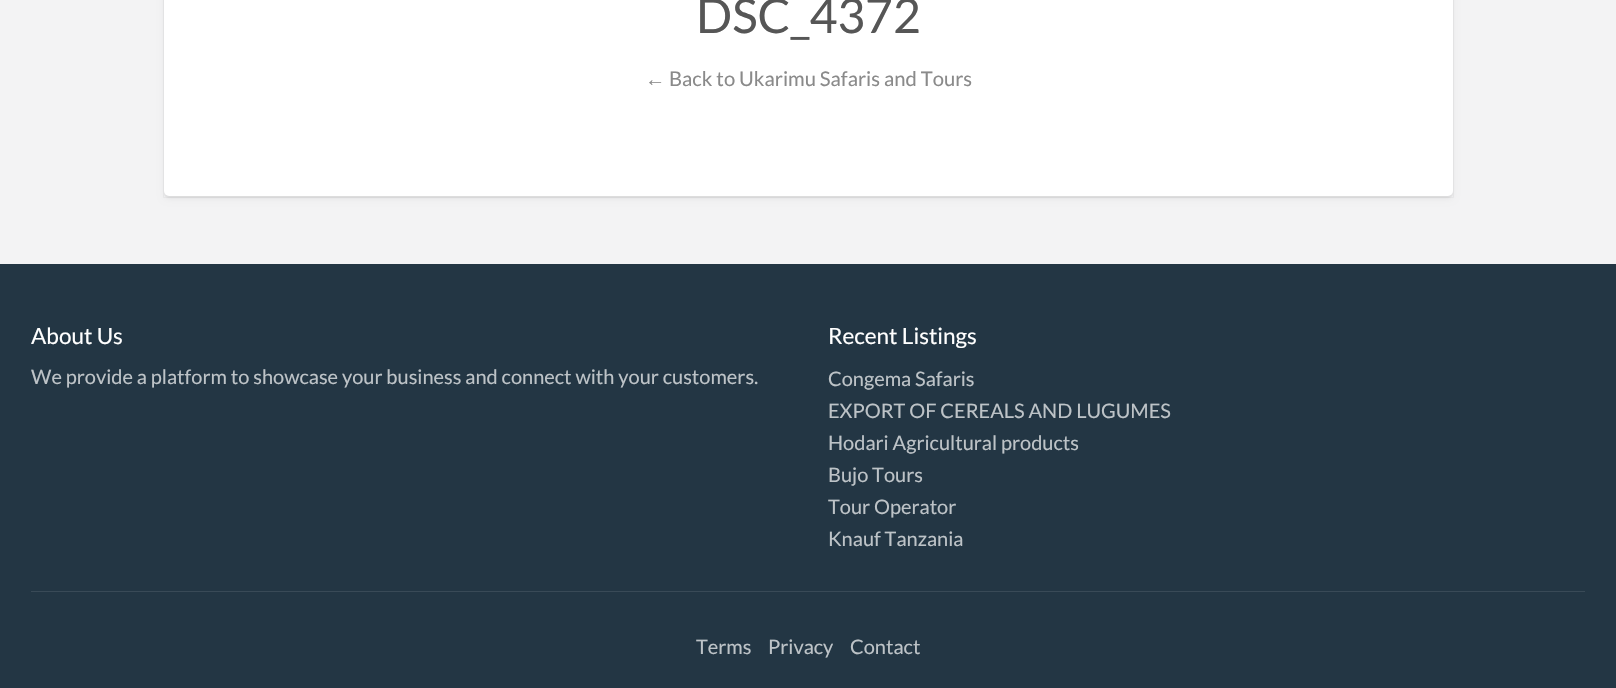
void draw(SkCanvas* canvas) {
    SkPaint paint;
    paint.setAntiAlias(true);
    auto face = [&](const char* family, int weight, float size, bool italic = false) {
        SkFontStyle style(weight, SkFontStyle::kNormal_Width,
            italic ? SkFontStyle::kItalic_Slant : SkFontStyle::kUpright_Slant);
        SkFont result(fontMgr->matchFamilyStyle(family, style), size);
        result.setSubpixel(true);
        return result;
    };
    auto write = [&](const char* s, float x, float y, const SkFont& font, SkColor color) {
        SkPaint ink(SkColor4f::FromColor(color));
        ink.setAntiAlias(true);
        canvas->drawString(s, x, y, font, ink);
    };
    auto block = [&](float x, float y, float w, float h, SkColor color) {
        SkPaint ink(SkColor4f::FromColor(color));
        ink.setAntiAlias(true);
        canvas->drawRect(SkRect::MakeXYWH(x, y, w, h), ink);
    };
    auto card = [&](float x, float y, float w, float h, float radius, SkColor color) {
        SkPaint ink(SkColor4f::FromColor(color));
        ink.setAntiAlias(true);
        canvas->drawRoundRect(SkRect::MakeXYWH(x, y, w, h), radius, radius, ink);
    };
    canvas->clear(SkColorSetRGB(243, 243, 244));
    paint.setColor(SkColorSetARGB(13, 0, 0, 0));
    paint.setMaskFilter(SkMaskFilter::MakeBlur(kNormal_SkBlurStyle, 3));
    canvas->drawRoundRect(SkRect::MakeXYWH(164, -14, 1289, 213), 5, 5, paint);
    paint.setMaskFilter(nullptr);
    paint.setMaskFilter(SkMaskFilter::MakeBlur(kNormal_SkBlurStyle, 0.5f));
    canvas->drawRoundRect(SkRect::MakeXYWH(164, -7, 1289, 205), 5, 5, paint);
    paint.setMaskFilter(nullptr);
    paint.setStyle(SkPaint::kStroke_Style);
    paint.setStrokeWidth(1);
    paint.setColor(SkColorSetARGB(8, 0, 0, 0));
    canvas->drawRect(SkRect::MakeXYWH(163.5f, -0.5f, 1290, 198), paint);
    card(164, -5, 1289, 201, 5, SK_ColorWHITE);
    auto kFont1 = face("Lato", 400, 48);
    write("DSC_4372", 696, 33, kFont1, SkColorSetRGB(86, 86, 86));
    auto kFont2 = face("Liberation Sans", 400, 20.25f);
    write("←", 645, 86, kFont2, SkColorSetRGB(138, 138, 138));
    auto kFont3 = face("Lato", 400, 20.25f);
    write("Back to Ukarimu Safaris and Tours", 669, 86, kFont3, SkColorSetRGB(138, 138, 138));
    block(0, 264, 1616, 424, SkColorSetRGB(35, 54, 68));
    auto kFont4 = face("Lato", 400, 22.5f);
    write("About Us", 31, 344, kFont4, SK_ColorWHITE);
    auto kFont5 = face("Lato", 400, 20);
    write("We provide a platform to showcase your business and connect with your customers.", 31, 384, kFont5, SkColorSetRGB(189, 195, 199));
    write("Recent Listings", 828, 344, kFont4, SK_ColorWHITE);
    write("Congema Safaris", 828, 386, kFont5, SkColorSetRGB(189, 195, 199));
    write("EXPORT OF CEREALS AND LUGUMES", 828, 418, kFont5, SkColorSetRGB(189, 195, 199));
    write("Hodari Agricultural products", 828, 450, kFont5, SkColorSetRGB(189, 195, 199));
    write("Bujo Tours", 828, 482, kFont5, SkColorSetRGB(189, 195, 199));
    write("Tour Operator", 828, 514, kFont5, SkColorSetRGB(189, 195, 199));
    write("Knauf Tanzania", 828, 546, kFont5, SkColorSetRGB(189, 195, 199));
    block(31, 591, 1554, 1, SkColorSetRGB(57, 74, 87));
    write("Terms", 696, 654, kFont5, SkColorSetRGB(189, 195, 199));
    write("Privacy", 768, 654, kFont5, SkColorSetRGB(189, 195, 199));
    write("Contact", 850, 654, kFont5, SkColorSetRGB(189, 195, 199));
}
